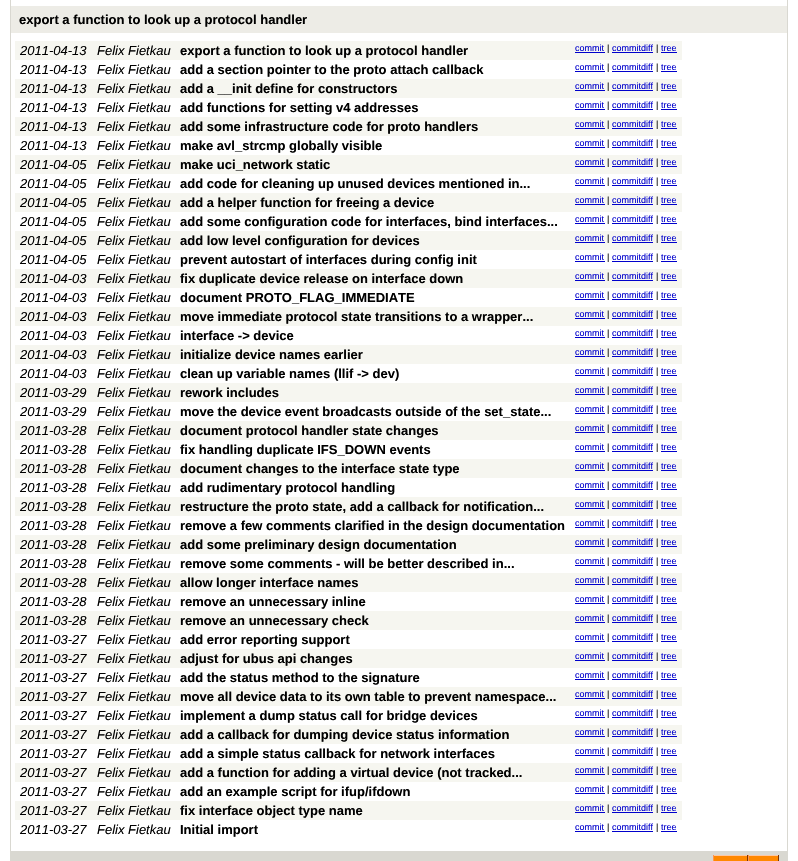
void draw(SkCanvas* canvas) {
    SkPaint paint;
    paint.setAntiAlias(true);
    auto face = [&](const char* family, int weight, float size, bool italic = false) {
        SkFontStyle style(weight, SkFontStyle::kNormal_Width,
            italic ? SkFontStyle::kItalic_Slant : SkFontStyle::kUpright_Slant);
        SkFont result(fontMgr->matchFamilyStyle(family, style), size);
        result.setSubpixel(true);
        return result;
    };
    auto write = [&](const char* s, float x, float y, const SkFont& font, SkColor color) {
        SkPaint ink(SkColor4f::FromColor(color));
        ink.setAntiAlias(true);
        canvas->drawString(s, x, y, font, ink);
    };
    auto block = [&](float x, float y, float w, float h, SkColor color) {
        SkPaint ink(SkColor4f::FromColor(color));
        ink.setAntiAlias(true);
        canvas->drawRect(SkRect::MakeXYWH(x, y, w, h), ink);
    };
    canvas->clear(SK_ColorWHITE);
    paint.setStyle(SkPaint::kStroke_Style);
    paint.setStrokeWidth(1);
    paint.setColor(SkColorSetRGB(217, 216, 209));
    canvas->drawRect(SkRect::MakeXYWH(10.5f, -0.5f, 777, 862), paint);
    block(11, 6, 776, 27, SkColorSetRGB(237, 236, 230));
    auto kFont1 = face("Liberation Sans", 700, 13);
    write("export a function to look up a protocol handler", 19, 24, kFont1, SK_ColorBLACK);
    block(15, 41, 667, 19, SkColorSetRGB(246, 246, 240));
    auto kFont2 = face("Liberation Sans", 400, 13, true);
    write("2011-04-13", 20, 55, kFont2, SK_ColorBLACK);
    write("Felix Fietkau", 97, 55, kFont2, SK_ColorBLACK);
    write("export a function to look up a protocol handler", 180, 55, kFont1, SK_ColorBLACK);
    auto kFont3 = face("Liberation Sans", 400, 9);
    write("commit", 575, 51, kFont3, SkColorSetRGB(0, 0, 204));
    block(575, 52, 30, 1, SkColorSetRGB(0, 0, 204));
    write("|", 607, 51, kFont3, SK_ColorBLACK);
    write("commitdiff", 612, 51, kFont3, SkColorSetRGB(0, 0, 204));
    block(612, 52, 41, 1, SkColorSetRGB(0, 0, 204));
    write("|", 656, 51, kFont3, SK_ColorBLACK);
    write("tree", 661, 51, kFont3, SkColorSetRGB(0, 0, 204));
    block(661, 52, 16, 1, SkColorSetRGB(0, 0, 204));
    write("2011-04-13", 20, 74, kFont2, SK_ColorBLACK);
    write("Felix Fietkau", 97, 74, kFont2, SK_ColorBLACK);
    write("add a section pointer to the proto attach callback", 180, 74, kFont1, SK_ColorBLACK);
    write("commit", 575, 70, kFont3, SkColorSetRGB(0, 0, 204));
    block(575, 71, 30, 1, SkColorSetRGB(0, 0, 204));
    write("|", 607, 70, kFont3, SK_ColorBLACK);
    write("commitdiff", 612, 70, kFont3, SkColorSetRGB(0, 0, 204));
    block(612, 71, 41, 1, SkColorSetRGB(0, 0, 204));
    write("|", 656, 70, kFont3, SK_ColorBLACK);
    write("tree", 661, 70, kFont3, SkColorSetRGB(0, 0, 204));
    block(661, 71, 16, 1, SkColorSetRGB(0, 0, 204));
    block(15, 79, 667, 19, SkColorSetRGB(246, 246, 240));
    write("2011-04-13", 20, 93, kFont2, SK_ColorBLACK);
    write("Felix Fietkau", 97, 93, kFont2, SK_ColorBLACK);
    write("add a __init define for constructors", 180, 93, kFont1, SK_ColorBLACK);
    write("commit", 575, 89, kFont3, SkColorSetRGB(0, 0, 204));
    block(575, 90, 30, 1, SkColorSetRGB(0, 0, 204));
    write("|", 607, 89, kFont3, SK_ColorBLACK);
    write("commitdiff", 612, 89, kFont3, SkColorSetRGB(0, 0, 204));
    block(612, 90, 41, 1, SkColorSetRGB(0, 0, 204));
    write("|", 656, 89, kFont3, SK_ColorBLACK);
    write("tree", 661, 89, kFont3, SkColorSetRGB(0, 0, 204));
    block(661, 90, 16, 1, SkColorSetRGB(0, 0, 204));
    write("2011-04-13", 20, 112, kFont2, SK_ColorBLACK);
    write("Felix Fietkau", 97, 112, kFont2, SK_ColorBLACK);
    write("add functions for setting v4 addresses", 180, 112, kFont1, SK_ColorBLACK);
    write("commit", 575, 108, kFont3, SkColorSetRGB(0, 0, 204));
    block(575, 109, 30, 1, SkColorSetRGB(0, 0, 204));
    write("|", 607, 108, kFont3, SK_ColorBLACK);
    write("commitdiff", 612, 108, kFont3, SkColorSetRGB(0, 0, 204));
    block(612, 109, 41, 1, SkColorSetRGB(0, 0, 204));
    write("|", 656, 108, kFont3, SK_ColorBLACK);
    write("tree", 661, 108, kFont3, SkColorSetRGB(0, 0, 204));
    block(661, 109, 16, 1, SkColorSetRGB(0, 0, 204));
    block(15, 117, 667, 19, SkColorSetRGB(246, 246, 240));
    write("2011-04-13", 20, 131, kFont2, SK_ColorBLACK);
    write("Felix Fietkau", 97, 131, kFont2, SK_ColorBLACK);
    write("add some infrastructure code for proto handlers", 180, 131, kFont1, SK_ColorBLACK);
    write("commit", 575, 127, kFont3, SkColorSetRGB(0, 0, 204));
    block(575, 128, 30, 1, SkColorSetRGB(0, 0, 204));
    write("|", 607, 127, kFont3, SK_ColorBLACK);
    write("commitdiff", 612, 127, kFont3, SkColorSetRGB(0, 0, 204));
    block(612, 128, 41, 1, SkColorSetRGB(0, 0, 204));
    write("|", 656, 127, kFont3, SK_ColorBLACK);
    write("tree", 661, 127, kFont3, SkColorSetRGB(0, 0, 204));
    block(661, 128, 16, 1, SkColorSetRGB(0, 0, 204));
    write("2011-04-13", 20, 150, kFont2, SK_ColorBLACK);
    write("Felix Fietkau", 97, 150, kFont2, SK_ColorBLACK);
    write("make avl_strcmp globally visible", 180, 150, kFont1, SK_ColorBLACK);
    write("commit", 575, 146, kFont3, SkColorSetRGB(0, 0, 204));
    block(575, 147, 30, 1, SkColorSetRGB(0, 0, 204));
    write("|", 607, 146, kFont3, SK_ColorBLACK);
    write("commitdiff", 612, 146, kFont3, SkColorSetRGB(0, 0, 204));
    block(612, 147, 41, 1, SkColorSetRGB(0, 0, 204));
    write("|", 656, 146, kFont3, SK_ColorBLACK);
    write("tree", 661, 146, kFont3, SkColorSetRGB(0, 0, 204));
    block(661, 147, 16, 1, SkColorSetRGB(0, 0, 204));
    block(15, 155, 667, 19, SkColorSetRGB(246, 246, 240));
    write("2011-04-05", 20, 169, kFont2, SK_ColorBLACK);
    write("Felix Fietkau", 97, 169, kFont2, SK_ColorBLACK);
    write("make uci_network static", 180, 169, kFont1, SK_ColorBLACK);
    write("commit", 575, 165, kFont3, SkColorSetRGB(0, 0, 204));
    block(575, 166, 30, 1, SkColorSetRGB(0, 0, 204));
    write("|", 607, 165, kFont3, SK_ColorBLACK);
    write("commitdiff", 612, 165, kFont3, SkColorSetRGB(0, 0, 204));
    block(612, 166, 41, 1, SkColorSetRGB(0, 0, 204));
    write("|", 656, 165, kFont3, SK_ColorBLACK);
    write("tree", 661, 165, kFont3, SkColorSetRGB(0, 0, 204));
    block(661, 166, 16, 1, SkColorSetRGB(0, 0, 204));
    write("2011-04-05", 20, 188, kFont2, SK_ColorBLACK);
    write("Felix Fietkau", 97, 188, kFont2, SK_ColorBLACK);
    write("add code for cleaning up unused devices mentioned in...", 180, 188, kFont1, SK_ColorBLACK);
    write("commit", 575, 184, kFont3, SkColorSetRGB(0, 0, 204));
    block(575, 185, 30, 1, SkColorSetRGB(0, 0, 204));
    write("|", 607, 184, kFont3, SK_ColorBLACK);
    write("commitdiff", 612, 184, kFont3, SkColorSetRGB(0, 0, 204));
    block(612, 185, 41, 1, SkColorSetRGB(0, 0, 204));
    write("|", 656, 184, kFont3, SK_ColorBLACK);
    write("tree", 661, 184, kFont3, SkColorSetRGB(0, 0, 204));
    block(661, 185, 16, 1, SkColorSetRGB(0, 0, 204));
    block(15, 193, 667, 19, SkColorSetRGB(246, 246, 240));
    write("2011-04-05", 20, 207, kFont2, SK_ColorBLACK);
    write("Felix Fietkau", 97, 207, kFont2, SK_ColorBLACK);
    write("add a helper function for freeing a device", 180, 207, kFont1, SK_ColorBLACK);
    write("commit", 575, 203, kFont3, SkColorSetRGB(0, 0, 204));
    block(575, 204, 30, 1, SkColorSetRGB(0, 0, 204));
    write("|", 607, 203, kFont3, SK_ColorBLACK);
    write("commitdiff", 612, 203, kFont3, SkColorSetRGB(0, 0, 204));
    block(612, 204, 41, 1, SkColorSetRGB(0, 0, 204));
    write("|", 656, 203, kFont3, SK_ColorBLACK);
    write("tree", 661, 203, kFont3, SkColorSetRGB(0, 0, 204));
    block(661, 204, 16, 1, SkColorSetRGB(0, 0, 204));
    write("2011-04-05", 20, 226, kFont2, SK_ColorBLACK);
    write("Felix Fietkau", 97, 226, kFont2, SK_ColorBLACK);
    write("add some configuration code for interfaces, bind interfaces...", 180, 226, kFont1, SK_ColorBLACK);
    write("commit", 575, 222, kFont3, SkColorSetRGB(0, 0, 204));
    block(575, 223, 30, 1, SkColorSetRGB(0, 0, 204));
    write("|", 607, 222, kFont3, SK_ColorBLACK);
    write("commitdiff", 612, 222, kFont3, SkColorSetRGB(0, 0, 204));
    block(612, 223, 41, 1, SkColorSetRGB(0, 0, 204));
    write("|", 656, 222, kFont3, SK_ColorBLACK);
    write("tree", 661, 222, kFont3, SkColorSetRGB(0, 0, 204));
    block(661, 223, 16, 1, SkColorSetRGB(0, 0, 204));
    block(15, 231, 667, 19, SkColorSetRGB(246, 246, 240));
    write("2011-04-05", 20, 245, kFont2, SK_ColorBLACK);
    write("Felix Fietkau", 97, 245, kFont2, SK_ColorBLACK);
    write("add low level configuration for devices", 180, 245, kFont1, SK_ColorBLACK);
    write("commit", 575, 241, kFont3, SkColorSetRGB(0, 0, 204));
    block(575, 242, 30, 1, SkColorSetRGB(0, 0, 204));
    write("|", 607, 241, kFont3, SK_ColorBLACK);
    write("commitdiff", 612, 241, kFont3, SkColorSetRGB(0, 0, 204));
    block(612, 242, 41, 1, SkColorSetRGB(0, 0, 204));
    write("|", 656, 241, kFont3, SK_ColorBLACK);
    write("tree", 661, 241, kFont3, SkColorSetRGB(0, 0, 204));
    block(661, 242, 16, 1, SkColorSetRGB(0, 0, 204));
    write("2011-04-05", 20, 264, kFont2, SK_ColorBLACK);
    write("Felix Fietkau", 97, 264, kFont2, SK_ColorBLACK);
    write("prevent autostart of interfaces during config init", 180, 264, kFont1, SK_ColorBLACK);
    write("commit", 575, 260, kFont3, SkColorSetRGB(0, 0, 204));
    block(575, 261, 30, 1, SkColorSetRGB(0, 0, 204));
    write("|", 607, 260, kFont3, SK_ColorBLACK);
    write("commitdiff", 612, 260, kFont3, SkColorSetRGB(0, 0, 204));
    block(612, 261, 41, 1, SkColorSetRGB(0, 0, 204));
    write("|", 656, 260, kFont3, SK_ColorBLACK);
    write("tree", 661, 260, kFont3, SkColorSetRGB(0, 0, 204));
    block(661, 261, 16, 1, SkColorSetRGB(0, 0, 204));
    block(15, 269, 667, 19, SkColorSetRGB(246, 246, 240));
    write("2011-04-03", 20, 283, kFont2, SK_ColorBLACK);
    write("Felix Fietkau", 97, 283, kFont2, SK_ColorBLACK);
    write("fix duplicate device release on interface down", 180, 283, kFont1, SK_ColorBLACK);
    write("commit", 575, 279, kFont3, SkColorSetRGB(0, 0, 204));
    block(575, 280, 30, 1, SkColorSetRGB(0, 0, 204));
    write("|", 607, 279, kFont3, SK_ColorBLACK);
    write("commitdiff", 612, 279, kFont3, SkColorSetRGB(0, 0, 204));
    block(612, 280, 41, 1, SkColorSetRGB(0, 0, 204));
    write("|", 656, 279, kFont3, SK_ColorBLACK);
    write("tree", 661, 279, kFont3, SkColorSetRGB(0, 0, 204));
    block(661, 280, 16, 1, SkColorSetRGB(0, 0, 204));
    write("2011-04-03", 20, 302, kFont2, SK_ColorBLACK);
    write("Felix Fietkau", 97, 302, kFont2, SK_ColorBLACK);
    write("document PROTO_FLAG_IMMEDIATE", 180, 302, kFont1, SK_ColorBLACK);
    write("commit", 575, 298, kFont3, SkColorSetRGB(0, 0, 204));
    block(575, 299, 30, 1, SkColorSetRGB(0, 0, 204));
    write("|", 607, 298, kFont3, SK_ColorBLACK);
    write("commitdiff", 612, 298, kFont3, SkColorSetRGB(0, 0, 204));
    block(612, 299, 41, 1, SkColorSetRGB(0, 0, 204));
    write("|", 656, 298, kFont3, SK_ColorBLACK);
    write("tree", 661, 298, kFont3, SkColorSetRGB(0, 0, 204));
    block(661, 299, 16, 1, SkColorSetRGB(0, 0, 204));
    block(15, 307, 667, 19, SkColorSetRGB(246, 246, 240));
    write("2011-04-03", 20, 321, kFont2, SK_ColorBLACK);
    write("Felix Fietkau", 97, 321, kFont2, SK_ColorBLACK);
    write("move immediate protocol state transitions to a wrapper...", 180, 321, kFont1, SK_ColorBLACK);
    write("commit", 575, 317, kFont3, SkColorSetRGB(0, 0, 204));
    block(575, 318, 30, 1, SkColorSetRGB(0, 0, 204));
    write("|", 607, 317, kFont3, SK_ColorBLACK);
    write("commitdiff", 612, 317, kFont3, SkColorSetRGB(0, 0, 204));
    block(612, 318, 41, 1, SkColorSetRGB(0, 0, 204));
    write("|", 656, 317, kFont3, SK_ColorBLACK);
    write("tree", 661, 317, kFont3, SkColorSetRGB(0, 0, 204));
    block(661, 318, 16, 1, SkColorSetRGB(0, 0, 204));
    write("2011-04-03", 20, 340, kFont2, SK_ColorBLACK);
    write("Felix Fietkau", 97, 340, kFont2, SK_ColorBLACK);
    write("interface -> device", 180, 340, kFont1, SK_ColorBLACK);
    write("commit", 575, 336, kFont3, SkColorSetRGB(0, 0, 204));
    block(575, 337, 30, 1, SkColorSetRGB(0, 0, 204));
    write("|", 607, 336, kFont3, SK_ColorBLACK);
    write("commitdiff", 612, 336, kFont3, SkColorSetRGB(0, 0, 204));
    block(612, 337, 41, 1, SkColorSetRGB(0, 0, 204));
    write("|", 656, 336, kFont3, SK_ColorBLACK);
    write("tree", 661, 336, kFont3, SkColorSetRGB(0, 0, 204));
    block(661, 337, 16, 1, SkColorSetRGB(0, 0, 204));
    block(15, 345, 667, 19, SkColorSetRGB(246, 246, 240));
    write("2011-04-03", 20, 359, kFont2, SK_ColorBLACK);
    write("Felix Fietkau", 97, 359, kFont2, SK_ColorBLACK);
    write("initialize device names earlier", 180, 359, kFont1, SK_ColorBLACK);
    write("commit", 575, 355, kFont3, SkColorSetRGB(0, 0, 204));
    block(575, 356, 30, 1, SkColorSetRGB(0, 0, 204));
    write("|", 607, 355, kFont3, SK_ColorBLACK);
    write("commitdiff", 612, 355, kFont3, SkColorSetRGB(0, 0, 204));
    block(612, 356, 41, 1, SkColorSetRGB(0, 0, 204));
    write("|", 656, 355, kFont3, SK_ColorBLACK);
    write("tree", 661, 355, kFont3, SkColorSetRGB(0, 0, 204));
    block(661, 356, 16, 1, SkColorSetRGB(0, 0, 204));
    write("2011-04-03", 20, 378, kFont2, SK_ColorBLACK);
    write("Felix Fietkau", 97, 378, kFont2, SK_ColorBLACK);
    write("clean up variable names (llif -> dev)", 180, 378, kFont1, SK_ColorBLACK);
    write("commit", 575, 374, kFont3, SkColorSetRGB(0, 0, 204));
    block(575, 375, 30, 1, SkColorSetRGB(0, 0, 204));
    write("|", 607, 374, kFont3, SK_ColorBLACK);
    write("commitdiff", 612, 374, kFont3, SkColorSetRGB(0, 0, 204));
    block(612, 375, 41, 1, SkColorSetRGB(0, 0, 204));
    write("|", 656, 374, kFont3, SK_ColorBLACK);
    write("tree", 661, 374, kFont3, SkColorSetRGB(0, 0, 204));
    block(661, 375, 16, 1, SkColorSetRGB(0, 0, 204));
    block(15, 383, 667, 19, SkColorSetRGB(246, 246, 240));
    write("2011-03-29", 20, 397, kFont2, SK_ColorBLACK);
    write("Felix Fietkau", 97, 397, kFont2, SK_ColorBLACK);
    write("rework includes", 180, 397, kFont1, SK_ColorBLACK);
    write("commit", 575, 393, kFont3, SkColorSetRGB(0, 0, 204));
    block(575, 394, 30, 1, SkColorSetRGB(0, 0, 204));
    write("|", 607, 393, kFont3, SK_ColorBLACK);
    write("commitdiff", 612, 393, kFont3, SkColorSetRGB(0, 0, 204));
    block(612, 394, 41, 1, SkColorSetRGB(0, 0, 204));
    write("|", 656, 393, kFont3, SK_ColorBLACK);
    write("tree", 661, 393, kFont3, SkColorSetRGB(0, 0, 204));
    block(661, 394, 16, 1, SkColorSetRGB(0, 0, 204));
    write("2011-03-29", 20, 416, kFont2, SK_ColorBLACK);
    write("Felix Fietkau", 97, 416, kFont2, SK_ColorBLACK);
    write("move the device event broadcasts outside of the set_state...", 180, 416, kFont1, SK_ColorBLACK);
    write("commit", 575, 412, kFont3, SkColorSetRGB(0, 0, 204));
    block(575, 413, 30, 1, SkColorSetRGB(0, 0, 204));
    write("|", 607, 412, kFont3, SK_ColorBLACK);
    write("commitdiff", 612, 412, kFont3, SkColorSetRGB(0, 0, 204));
    block(612, 413, 41, 1, SkColorSetRGB(0, 0, 204));
    write("|", 656, 412, kFont3, SK_ColorBLACK);
    write("tree", 661, 412, kFont3, SkColorSetRGB(0, 0, 204));
    block(661, 413, 16, 1, SkColorSetRGB(0, 0, 204));
    block(15, 421, 667, 19, SkColorSetRGB(246, 246, 240));
    write("2011-03-28", 20, 435, kFont2, SK_ColorBLACK);
    write("Felix Fietkau", 97, 435, kFont2, SK_ColorBLACK);
    write("document protocol handler state changes", 180, 435, kFont1, SK_ColorBLACK);
    write("commit", 575, 431, kFont3, SkColorSetRGB(0, 0, 204));
    block(575, 432, 30, 1, SkColorSetRGB(0, 0, 204));
    write("|", 607, 431, kFont3, SK_ColorBLACK);
    write("commitdiff", 612, 431, kFont3, SkColorSetRGB(0, 0, 204));
    block(612, 432, 41, 1, SkColorSetRGB(0, 0, 204));
    write("|", 656, 431, kFont3, SK_ColorBLACK);
    write("tree", 661, 431, kFont3, SkColorSetRGB(0, 0, 204));
    block(661, 432, 16, 1, SkColorSetRGB(0, 0, 204));
    write("2011-03-28", 20, 454, kFont2, SK_ColorBLACK);
    write("Felix Fietkau", 97, 454, kFont2, SK_ColorBLACK);
    write("fix handling duplicate IFS_DOWN events", 180, 454, kFont1, SK_ColorBLACK);
    write("commit", 575, 450, kFont3, SkColorSetRGB(0, 0, 204));
    block(575, 451, 30, 1, SkColorSetRGB(0, 0, 204));
    write("|", 607, 450, kFont3, SK_ColorBLACK);
    write("commitdiff", 612, 450, kFont3, SkColorSetRGB(0, 0, 204));
    block(612, 451, 41, 1, SkColorSetRGB(0, 0, 204));
    write("|", 656, 450, kFont3, SK_ColorBLACK);
    write("tree", 661, 450, kFont3, SkColorSetRGB(0, 0, 204));
    block(661, 451, 16, 1, SkColorSetRGB(0, 0, 204));
    block(15, 459, 667, 19, SkColorSetRGB(246, 246, 240));
    write("2011-03-28", 20, 473, kFont2, SK_ColorBLACK);
    write("Felix Fietkau", 97, 473, kFont2, SK_ColorBLACK);
    write("document changes to the interface state type", 180, 473, kFont1, SK_ColorBLACK);
    write("commit", 575, 469, kFont3, SkColorSetRGB(0, 0, 204));
    block(575, 470, 30, 1, SkColorSetRGB(0, 0, 204));
    write("|", 607, 469, kFont3, SK_ColorBLACK);
    write("commitdiff", 612, 469, kFont3, SkColorSetRGB(0, 0, 204));
    block(612, 470, 41, 1, SkColorSetRGB(0, 0, 204));
    write("|", 656, 469, kFont3, SK_ColorBLACK);
    write("tree", 661, 469, kFont3, SkColorSetRGB(0, 0, 204));
    block(661, 470, 16, 1, SkColorSetRGB(0, 0, 204));
    write("2011-03-28", 20, 492, kFont2, SK_ColorBLACK);
    write("Felix Fietkau", 97, 492, kFont2, SK_ColorBLACK);
    write("add rudimentary protocol handling", 180, 492, kFont1, SK_ColorBLACK);
    write("commit", 575, 488, kFont3, SkColorSetRGB(0, 0, 204));
    block(575, 489, 30, 1, SkColorSetRGB(0, 0, 204));
    write("|", 607, 488, kFont3, SK_ColorBLACK);
    write("commitdiff", 612, 488, kFont3, SkColorSetRGB(0, 0, 204));
    block(612, 489, 41, 1, SkColorSetRGB(0, 0, 204));
    write("|", 656, 488, kFont3, SK_ColorBLACK);
    write("tree", 661, 488, kFont3, SkColorSetRGB(0, 0, 204));
    block(661, 489, 16, 1, SkColorSetRGB(0, 0, 204));
    block(15, 497, 667, 19, SkColorSetRGB(246, 246, 240));
    write("2011-03-28", 20, 511, kFont2, SK_ColorBLACK);
    write("Felix Fietkau", 97, 511, kFont2, SK_ColorBLACK);
    write("restructure the proto state, add a callback for notification...", 180, 511, kFont1, SK_ColorBLACK);
    write("commit", 575, 507, kFont3, SkColorSetRGB(0, 0, 204));
    block(575, 508, 30, 1, SkColorSetRGB(0, 0, 204));
    write("|", 607, 507, kFont3, SK_ColorBLACK);
    write("commitdiff", 612, 507, kFont3, SkColorSetRGB(0, 0, 204));
    block(612, 508, 41, 1, SkColorSetRGB(0, 0, 204));
    write("|", 656, 507, kFont3, SK_ColorBLACK);
    write("tree", 661, 507, kFont3, SkColorSetRGB(0, 0, 204));
    block(661, 508, 16, 1, SkColorSetRGB(0, 0, 204));
    write("2011-03-28", 20, 530, kFont2, SK_ColorBLACK);
    write("Felix Fietkau", 97, 530, kFont2, SK_ColorBLACK);
    write("remove a few comments clarified in the design documentation", 180, 530, kFont1, SK_ColorBLACK);
    write("commit", 575, 526, kFont3, SkColorSetRGB(0, 0, 204));
    block(575, 527, 30, 1, SkColorSetRGB(0, 0, 204));
    write("|", 607, 526, kFont3, SK_ColorBLACK);
    write("commitdiff", 612, 526, kFont3, SkColorSetRGB(0, 0, 204));
    block(612, 527, 41, 1, SkColorSetRGB(0, 0, 204));
    write("|", 656, 526, kFont3, SK_ColorBLACK);
    write("tree", 661, 526, kFont3, SkColorSetRGB(0, 0, 204));
    block(661, 527, 16, 1, SkColorSetRGB(0, 0, 204));
    block(15, 535, 667, 19, SkColorSetRGB(246, 246, 240));
    write("2011-03-28", 20, 549, kFont2, SK_ColorBLACK);
    write("Felix Fietkau", 97, 549, kFont2, SK_ColorBLACK);
    write("add some preliminary design documentation", 180, 549, kFont1, SK_ColorBLACK);
    write("commit", 575, 545, kFont3, SkColorSetRGB(0, 0, 204));
    block(575, 546, 30, 1, SkColorSetRGB(0, 0, 204));
    write("|", 607, 545, kFont3, SK_ColorBLACK);
    write("commitdiff", 612, 545, kFont3, SkColorSetRGB(0, 0, 204));
    block(612, 546, 41, 1, SkColorSetRGB(0, 0, 204));
    write("|", 656, 545, kFont3, SK_ColorBLACK);
    write("tree", 661, 545, kFont3, SkColorSetRGB(0, 0, 204));
    block(661, 546, 16, 1, SkColorSetRGB(0, 0, 204));
    write("2011-03-28", 20, 568, kFont2, SK_ColorBLACK);
    write("Felix Fietkau", 97, 568, kFont2, SK_ColorBLACK);
    write("remove some comments - will be better described in...", 180, 568, kFont1, SK_ColorBLACK);
    write("commit", 575, 564, kFont3, SkColorSetRGB(0, 0, 204));
    block(575, 565, 30, 1, SkColorSetRGB(0, 0, 204));
    write("|", 607, 564, kFont3, SK_ColorBLACK);
    write("commitdiff", 612, 564, kFont3, SkColorSetRGB(0, 0, 204));
    block(612, 565, 41, 1, SkColorSetRGB(0, 0, 204));
    write("|", 656, 564, kFont3, SK_ColorBLACK);
    write("tree", 661, 564, kFont3, SkColorSetRGB(0, 0, 204));
    block(661, 565, 16, 1, SkColorSetRGB(0, 0, 204));
    block(15, 573, 667, 19, SkColorSetRGB(246, 246, 240));
    write("2011-03-28", 20, 587, kFont2, SK_ColorBLACK);
    write("Felix Fietkau", 97, 587, kFont2, SK_ColorBLACK);
    write("allow longer interface names", 180, 587, kFont1, SK_ColorBLACK);
    write("commit", 575, 583, kFont3, SkColorSetRGB(0, 0, 204));
    block(575, 584, 30, 1, SkColorSetRGB(0, 0, 204));
    write("|", 607, 583, kFont3, SK_ColorBLACK);
    write("commitdiff", 612, 583, kFont3, SkColorSetRGB(0, 0, 204));
    block(612, 584, 41, 1, SkColorSetRGB(0, 0, 204));
    write("|", 656, 583, kFont3, SK_ColorBLACK);
    write("tree", 661, 583, kFont3, SkColorSetRGB(0, 0, 204));
    block(661, 584, 16, 1, SkColorSetRGB(0, 0, 204));
    write("2011-03-28", 20, 606, kFont2, SK_ColorBLACK);
    write("Felix Fietkau", 97, 606, kFont2, SK_ColorBLACK);
    write("remove an unnecessary inline", 180, 606, kFont1, SK_ColorBLACK);
    write("commit", 575, 602, kFont3, SkColorSetRGB(0, 0, 204));
    block(575, 603, 30, 1, SkColorSetRGB(0, 0, 204));
    write("|", 607, 602, kFont3, SK_ColorBLACK);
    write("commitdiff", 612, 602, kFont3, SkColorSetRGB(0, 0, 204));
    block(612, 603, 41, 1, SkColorSetRGB(0, 0, 204));
    write("|", 656, 602, kFont3, SK_ColorBLACK);
    write("tree", 661, 602, kFont3, SkColorSetRGB(0, 0, 204));
    block(661, 603, 16, 1, SkColorSetRGB(0, 0, 204));
    block(15, 611, 667, 19, SkColorSetRGB(246, 246, 240));
    write("2011-03-28", 20, 625, kFont2, SK_ColorBLACK);
    write("Felix Fietkau", 97, 625, kFont2, SK_ColorBLACK);
    write("remove an unnecessary check", 180, 625, kFont1, SK_ColorBLACK);
    write("commit", 575, 621, kFont3, SkColorSetRGB(0, 0, 204));
    block(575, 622, 30, 1, SkColorSetRGB(0, 0, 204));
    write("|", 607, 621, kFont3, SK_ColorBLACK);
    write("commitdiff", 612, 621, kFont3, SkColorSetRGB(0, 0, 204));
    block(612, 622, 41, 1, SkColorSetRGB(0, 0, 204));
    write("|", 656, 621, kFont3, SK_ColorBLACK);
    write("tree", 661, 621, kFont3, SkColorSetRGB(0, 0, 204));
    block(661, 622, 16, 1, SkColorSetRGB(0, 0, 204));
    write("2011-03-27", 20, 644, kFont2, SK_ColorBLACK);
    write("Felix Fietkau", 97, 644, kFont2, SK_ColorBLACK);
    write("add error reporting support", 180, 644, kFont1, SK_ColorBLACK);
    write("commit", 575, 640, kFont3, SkColorSetRGB(0, 0, 204));
    block(575, 641, 30, 1, SkColorSetRGB(0, 0, 204));
    write("|", 607, 640, kFont3, SK_ColorBLACK);
    write("commitdiff", 612, 640, kFont3, SkColorSetRGB(0, 0, 204));
    block(612, 641, 41, 1, SkColorSetRGB(0, 0, 204));
    write("|", 656, 640, kFont3, SK_ColorBLACK);
    write("tree", 661, 640, kFont3, SkColorSetRGB(0, 0, 204));
    block(661, 641, 16, 1, SkColorSetRGB(0, 0, 204));
    block(15, 649, 667, 19, SkColorSetRGB(246, 246, 240));
    write("2011-03-27", 20, 663, kFont2, SK_ColorBLACK);
    write("Felix Fietkau", 97, 663, kFont2, SK_ColorBLACK);
    write("adjust for ubus api changes", 180, 663, kFont1, SK_ColorBLACK);
    write("commit", 575, 659, kFont3, SkColorSetRGB(0, 0, 204));
    block(575, 660, 30, 1, SkColorSetRGB(0, 0, 204));
    write("|", 607, 659, kFont3, SK_ColorBLACK);
    write("commitdiff", 612, 659, kFont3, SkColorSetRGB(0, 0, 204));
    block(612, 660, 41, 1, SkColorSetRGB(0, 0, 204));
    write("|", 656, 659, kFont3, SK_ColorBLACK);
    write("tree", 661, 659, kFont3, SkColorSetRGB(0, 0, 204));
    block(661, 660, 16, 1, SkColorSetRGB(0, 0, 204));
    write("2011-03-27", 20, 682, kFont2, SK_ColorBLACK);
    write("Felix Fietkau", 97, 682, kFont2, SK_ColorBLACK);
    write("add the status method to the signature", 180, 682, kFont1, SK_ColorBLACK);
    write("commit", 575, 678, kFont3, SkColorSetRGB(0, 0, 204));
    block(575, 679, 30, 1, SkColorSetRGB(0, 0, 204));
    write("|", 607, 678, kFont3, SK_ColorBLACK);
    write("commitdiff", 612, 678, kFont3, SkColorSetRGB(0, 0, 204));
    block(612, 679, 41, 1, SkColorSetRGB(0, 0, 204));
    write("|", 656, 678, kFont3, SK_ColorBLACK);
    write("tree", 661, 678, kFont3, SkColorSetRGB(0, 0, 204));
    block(661, 679, 16, 1, SkColorSetRGB(0, 0, 204));
    block(15, 687, 667, 19, SkColorSetRGB(246, 246, 240));
    write("2011-03-27", 20, 701, kFont2, SK_ColorBLACK);
    write("Felix Fietkau", 97, 701, kFont2, SK_ColorBLACK);
    write("move all device data to its own table to prevent namespace...", 180, 701, kFont1, SK_ColorBLACK);
    write("commit", 575, 697, kFont3, SkColorSetRGB(0, 0, 204));
    block(575, 698, 30, 1, SkColorSetRGB(0, 0, 204));
    write("|", 607, 697, kFont3, SK_ColorBLACK);
    write("commitdiff", 612, 697, kFont3, SkColorSetRGB(0, 0, 204));
    block(612, 698, 41, 1, SkColorSetRGB(0, 0, 204));
    write("|", 656, 697, kFont3, SK_ColorBLACK);
    write("tree", 661, 697, kFont3, SkColorSetRGB(0, 0, 204));
    block(661, 698, 16, 1, SkColorSetRGB(0, 0, 204));
    write("2011-03-27", 20, 720, kFont2, SK_ColorBLACK);
    write("Felix Fietkau", 97, 720, kFont2, SK_ColorBLACK);
    write("implement a dump status call for bridge devices", 180, 720, kFont1, SK_ColorBLACK);
    write("commit", 575, 716, kFont3, SkColorSetRGB(0, 0, 204));
    block(575, 717, 30, 1, SkColorSetRGB(0, 0, 204));
    write("|", 607, 716, kFont3, SK_ColorBLACK);
    write("commitdiff", 612, 716, kFont3, SkColorSetRGB(0, 0, 204));
    block(612, 717, 41, 1, SkColorSetRGB(0, 0, 204));
    write("|", 656, 716, kFont3, SK_ColorBLACK);
    write("tree", 661, 716, kFont3, SkColorSetRGB(0, 0, 204));
    block(661, 717, 16, 1, SkColorSetRGB(0, 0, 204));
    block(15, 725, 667, 19, SkColorSetRGB(246, 246, 240));
    write("2011-03-27", 20, 739, kFont2, SK_ColorBLACK);
    write("Felix Fietkau", 97, 739, kFont2, SK_ColorBLACK);
    write("add a callback for dumping device status information", 180, 739, kFont1, SK_ColorBLACK);
    write("commit", 575, 735, kFont3, SkColorSetRGB(0, 0, 204));
    block(575, 736, 30, 1, SkColorSetRGB(0, 0, 204));
    write("|", 607, 735, kFont3, SK_ColorBLACK);
    write("commitdiff", 612, 735, kFont3, SkColorSetRGB(0, 0, 204));
    block(612, 736, 41, 1, SkColorSetRGB(0, 0, 204));
    write("|", 656, 735, kFont3, SK_ColorBLACK);
    write("tree", 661, 735, kFont3, SkColorSetRGB(0, 0, 204));
    block(661, 736, 16, 1, SkColorSetRGB(0, 0, 204));
    write("2011-03-27", 20, 758, kFont2, SK_ColorBLACK);
    write("Felix Fietkau", 97, 758, kFont2, SK_ColorBLACK);
    write("add a simple status callback for network interfaces", 180, 758, kFont1, SK_ColorBLACK);
    write("commit", 575, 754, kFont3, SkColorSetRGB(0, 0, 204));
    block(575, 755, 30, 1, SkColorSetRGB(0, 0, 204));
    write("|", 607, 754, kFont3, SK_ColorBLACK);
    write("commitdiff", 612, 754, kFont3, SkColorSetRGB(0, 0, 204));
    block(612, 755, 41, 1, SkColorSetRGB(0, 0, 204));
    write("|", 656, 754, kFont3, SK_ColorBLACK);
    write("tree", 661, 754, kFont3, SkColorSetRGB(0, 0, 204));
    block(661, 755, 16, 1, SkColorSetRGB(0, 0, 204));
    block(15, 763, 667, 19, SkColorSetRGB(246, 246, 240));
    write("2011-03-27", 20, 777, kFont2, SK_ColorBLACK);
    write("Felix Fietkau", 97, 777, kFont2, SK_ColorBLACK);
    write("add a function for adding a virtual device (not tracked...", 180, 777, kFont1, SK_ColorBLACK);
    write("commit", 575, 773, kFont3, SkColorSetRGB(0, 0, 204));
    block(575, 774, 30, 1, SkColorSetRGB(0, 0, 204));
    write("|", 607, 773, kFont3, SK_ColorBLACK);
    write("commitdiff", 612, 773, kFont3, SkColorSetRGB(0, 0, 204));
    block(612, 774, 41, 1, SkColorSetRGB(0, 0, 204));
    write("|", 656, 773, kFont3, SK_ColorBLACK);
    write("tree", 661, 773, kFont3, SkColorSetRGB(0, 0, 204));
    block(661, 774, 16, 1, SkColorSetRGB(0, 0, 204));
    write("2011-03-27", 20, 796, kFont2, SK_ColorBLACK);
    write("Felix Fietkau", 97, 796, kFont2, SK_ColorBLACK);
    write("add an example script for ifup/ifdown", 180, 796, kFont1, SK_ColorBLACK);
    write("commit", 575, 792, kFont3, SkColorSetRGB(0, 0, 204));
    block(575, 793, 30, 1, SkColorSetRGB(0, 0, 204));
    write("|", 607, 792, kFont3, SK_ColorBLACK);
    write("commitdiff", 612, 792, kFont3, SkColorSetRGB(0, 0, 204));
    block(612, 793, 41, 1, SkColorSetRGB(0, 0, 204));
    write("|", 656, 792, kFont3, SK_ColorBLACK);
    write("tree", 661, 792, kFont3, SkColorSetRGB(0, 0, 204));
    block(661, 793, 16, 1, SkColorSetRGB(0, 0, 204));
    block(15, 801, 667, 19, SkColorSetRGB(246, 246, 240));
    write("2011-03-27", 20, 815, kFont2, SK_ColorBLACK);
    write("Felix Fietkau", 97, 815, kFont2, SK_ColorBLACK);
    write("fix interface object type name", 180, 815, kFont1, SK_ColorBLACK);
    write("commit", 575, 811, kFont3, SkColorSetRGB(0, 0, 204));
    block(575, 812, 30, 1, SkColorSetRGB(0, 0, 204));
    write("|", 607, 811, kFont3, SK_ColorBLACK);
    write("commitdiff", 612, 811, kFont3, SkColorSetRGB(0, 0, 204));
    block(612, 812, 41, 1, SkColorSetRGB(0, 0, 204));
    write("|", 656, 811, kFont3, SK_ColorBLACK);
    write("tree", 661, 811, kFont3, SkColorSetRGB(0, 0, 204));
    block(661, 812, 16, 1, SkColorSetRGB(0, 0, 204));
    write("2011-03-27", 20, 834, kFont2, SK_ColorBLACK);
    write("Felix Fietkau", 97, 834, kFont2, SK_ColorBLACK);
    write("Initial import", 180, 834, kFont1, SK_ColorBLACK);
    write("commit", 575, 830, kFont3, SkColorSetRGB(0, 0, 204));
    block(575, 831, 30, 1, SkColorSetRGB(0, 0, 204));
    write("|", 607, 830, kFont3, SK_ColorBLACK);
    write("commitdiff", 612, 830, kFont3, SkColorSetRGB(0, 0, 204));
    block(612, 831, 41, 1, SkColorSetRGB(0, 0, 204));
    write("|", 656, 830, kFont3, SK_ColorBLACK);
    write("tree", 661, 830, kFont3, SkColorSetRGB(0, 0, 204));
    block(661, 831, 16, 1, SkColorSetRGB(0, 0, 204));
    block(11, 851, 776, 10, SkColorSetRGB(217, 216, 209));
    block(713, 856, 66, 5, SkColorSetRGB(255, 136, 0));
    block(713, 855, 66, 1, SkColorSetRGB(252, 199, 165));
    block(778, 855, 1, 6, SkColorSetRGB(125, 51, 2));
    block(748, 855, 1, 6, SkColorSetRGB(255, 149, 78));
    block(747, 855, 1, 6, SkColorSetRGB(125, 51, 2));
    block(713, 855, 1, 6, SkColorSetRGB(255, 149, 78));
}
